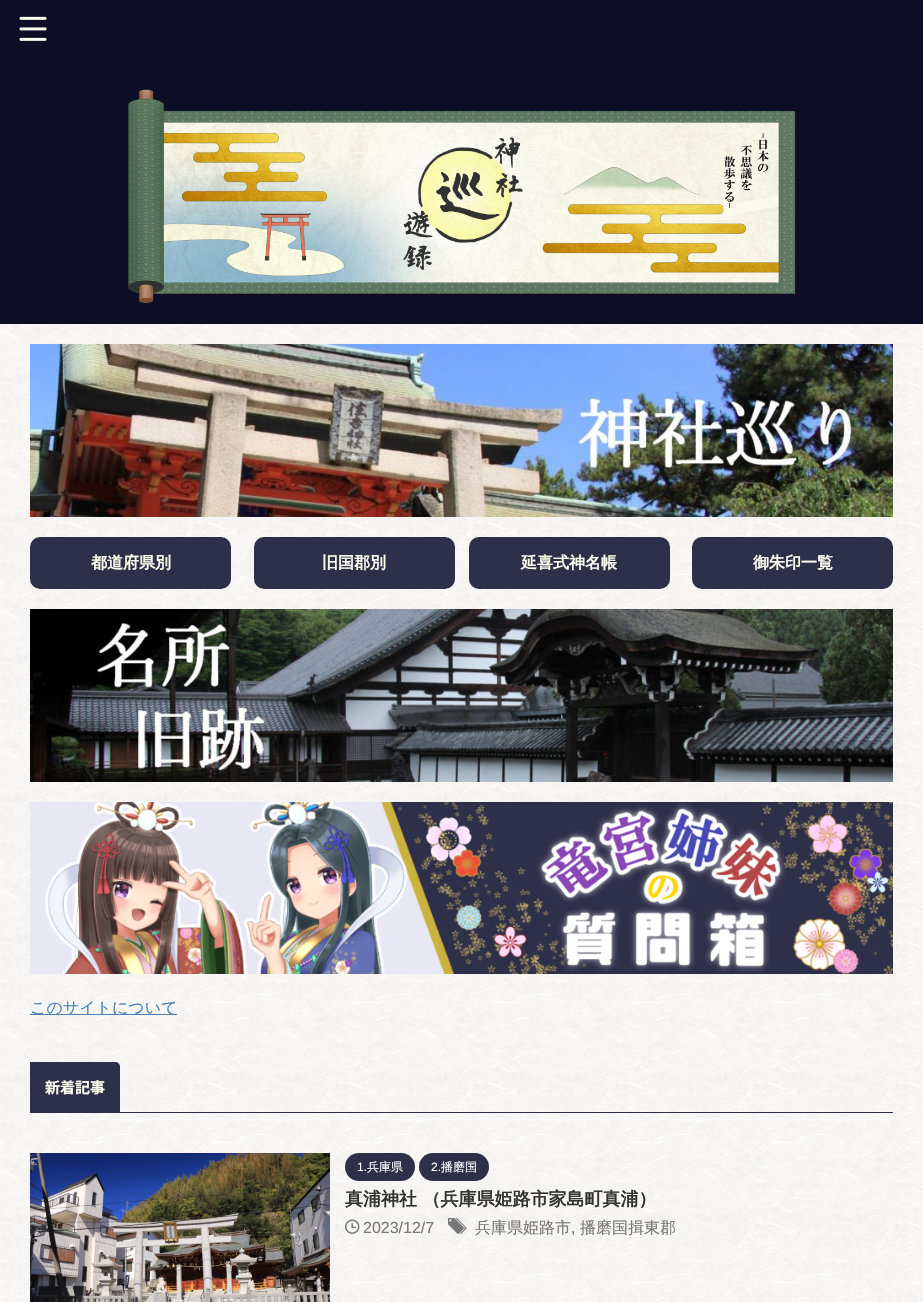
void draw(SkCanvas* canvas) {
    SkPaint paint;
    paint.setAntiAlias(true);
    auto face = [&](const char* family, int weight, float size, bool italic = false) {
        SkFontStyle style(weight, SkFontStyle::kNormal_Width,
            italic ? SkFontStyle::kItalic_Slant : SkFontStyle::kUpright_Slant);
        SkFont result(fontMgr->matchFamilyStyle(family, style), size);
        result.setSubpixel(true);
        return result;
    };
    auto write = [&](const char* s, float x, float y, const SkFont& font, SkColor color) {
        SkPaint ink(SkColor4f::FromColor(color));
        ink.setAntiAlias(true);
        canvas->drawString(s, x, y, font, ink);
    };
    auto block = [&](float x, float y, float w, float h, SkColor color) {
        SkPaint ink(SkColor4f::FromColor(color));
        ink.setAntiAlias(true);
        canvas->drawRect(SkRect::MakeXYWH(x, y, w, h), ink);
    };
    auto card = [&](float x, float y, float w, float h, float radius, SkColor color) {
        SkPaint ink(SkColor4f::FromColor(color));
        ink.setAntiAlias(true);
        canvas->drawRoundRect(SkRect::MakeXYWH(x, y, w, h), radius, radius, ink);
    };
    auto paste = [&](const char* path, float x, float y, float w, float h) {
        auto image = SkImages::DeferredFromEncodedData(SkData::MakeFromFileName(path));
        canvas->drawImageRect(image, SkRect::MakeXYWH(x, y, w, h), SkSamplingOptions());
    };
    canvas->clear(SkColorSetRGB(13, 13, 38));
    paste("pic1.png", 19, 16, 28, 25);
    paste("pic2.png", 128, 89, 668, 215);
    paste("pic3.png", 0, 324, 923, 978);
    paste("pic4.png", 30, 344, 863, 173);
    card(30, 537, 201, 52, 10, SkColorSetRGB(46, 47, 73));
    auto kFont1 = face("WenQuanYi Zen Hei", 700, 16);
    write("都道府県別", 91, 568, kFont1, SkColorSetRGB(252, 252, 237));
    card(254, 537, 201, 52, 10, SkColorSetRGB(46, 47, 73));
    write("旧国郡別", 322, 568, kFont1, SkColorSetRGB(252, 252, 237));
    card(469, 537, 201, 52, 10, SkColorSetRGB(46, 47, 73));
    write("延喜式神名帳", 521, 568, kFont1, SkColorSetRGB(252, 252, 237));
    card(692, 537, 201, 52, 10, SkColorSetRGB(46, 47, 73));
    write("御朱印一覧", 753, 568, kFont1, SkColorSetRGB(252, 252, 237));
    paste("pic5.png", 30, 609, 863, 173);
    paste("pic6.png", 30, 802, 863, 172);
    block(30, 1014, 147, 1, SkColorSetRGB(70, 130, 180));
    auto kFont2 = face("WenQuanYi Zen Hei", 500, 16);
    write("このサイトについて", 30, 1013, kFont2, SkColorSetRGB(70, 130, 180));
    block(30, 1112, 863, 1, SkColorSetRGB(46, 47, 73));
    paint.setColor(SkColorSetRGB(46, 47, 73));
    canvas->drawPath(SkPathBuilder().moveTo(30, 1062).lineTo(115, 1062).cubicTo(118, 1062, 120, 1064, 120, 1067).lineTo(120, 1112).lineTo(30, 1112).close().detach(), paint);
    auto kFont3 = face("Noto Sans JP", 700, 15);
    write("新着記事", 45, 1093, kFont3, SkColorSetRGB(252, 252, 237));
    paste("pic7.png", 30, 1153, 300, 149);
    card(345, 1153, 70, 28, 14, SkColorSetRGB(46, 47, 73));
    auto kFont4 = face("Liberation Sans", 400, 12);
    write("1.", 357, 1171, kFont4, SK_ColorWHITE);
    auto kFont5 = face("WenQuanYi Zen Hei", 500, 12);
    write("兵庫県", 367, 1171, kFont5, SK_ColorWHITE);
    card(419, 1153, 70, 28, 14, SkColorSetRGB(46, 47, 73));
    write("2.", 431, 1171, kFont4, SK_ColorWHITE);
    write("播磨国", 441, 1171, kFont5, SK_ColorWHITE);
    auto kFont6 = face("WenQuanYi Zen Hei", 700, 18);
    write("真浦神社 （兵庫県姫路市家島町真浦）", 345, 1205, kFont6, SkColorSetRGB(51, 51, 51));
    paste("pic8.png", 345, 1219, 15, 15);
    auto kFont7 = face("Liberation Sans", 400, 16);
    write("2023/12/7", 363, 1233, kFont7, SkColorSetRGB(119, 119, 119));
    paste("pic9.png", 448, 1218, 19, 16);
    write("兵庫県姫路市", 475, 1233, kFont2, SkColorSetRGB(119, 119, 119));
    write(",", 571, 1233, kFont7, SkColorSetRGB(119, 119, 119));
    write("播磨国揖東郡", 580, 1233, kFont2, SkColorSetRGB(119, 119, 119));
}
